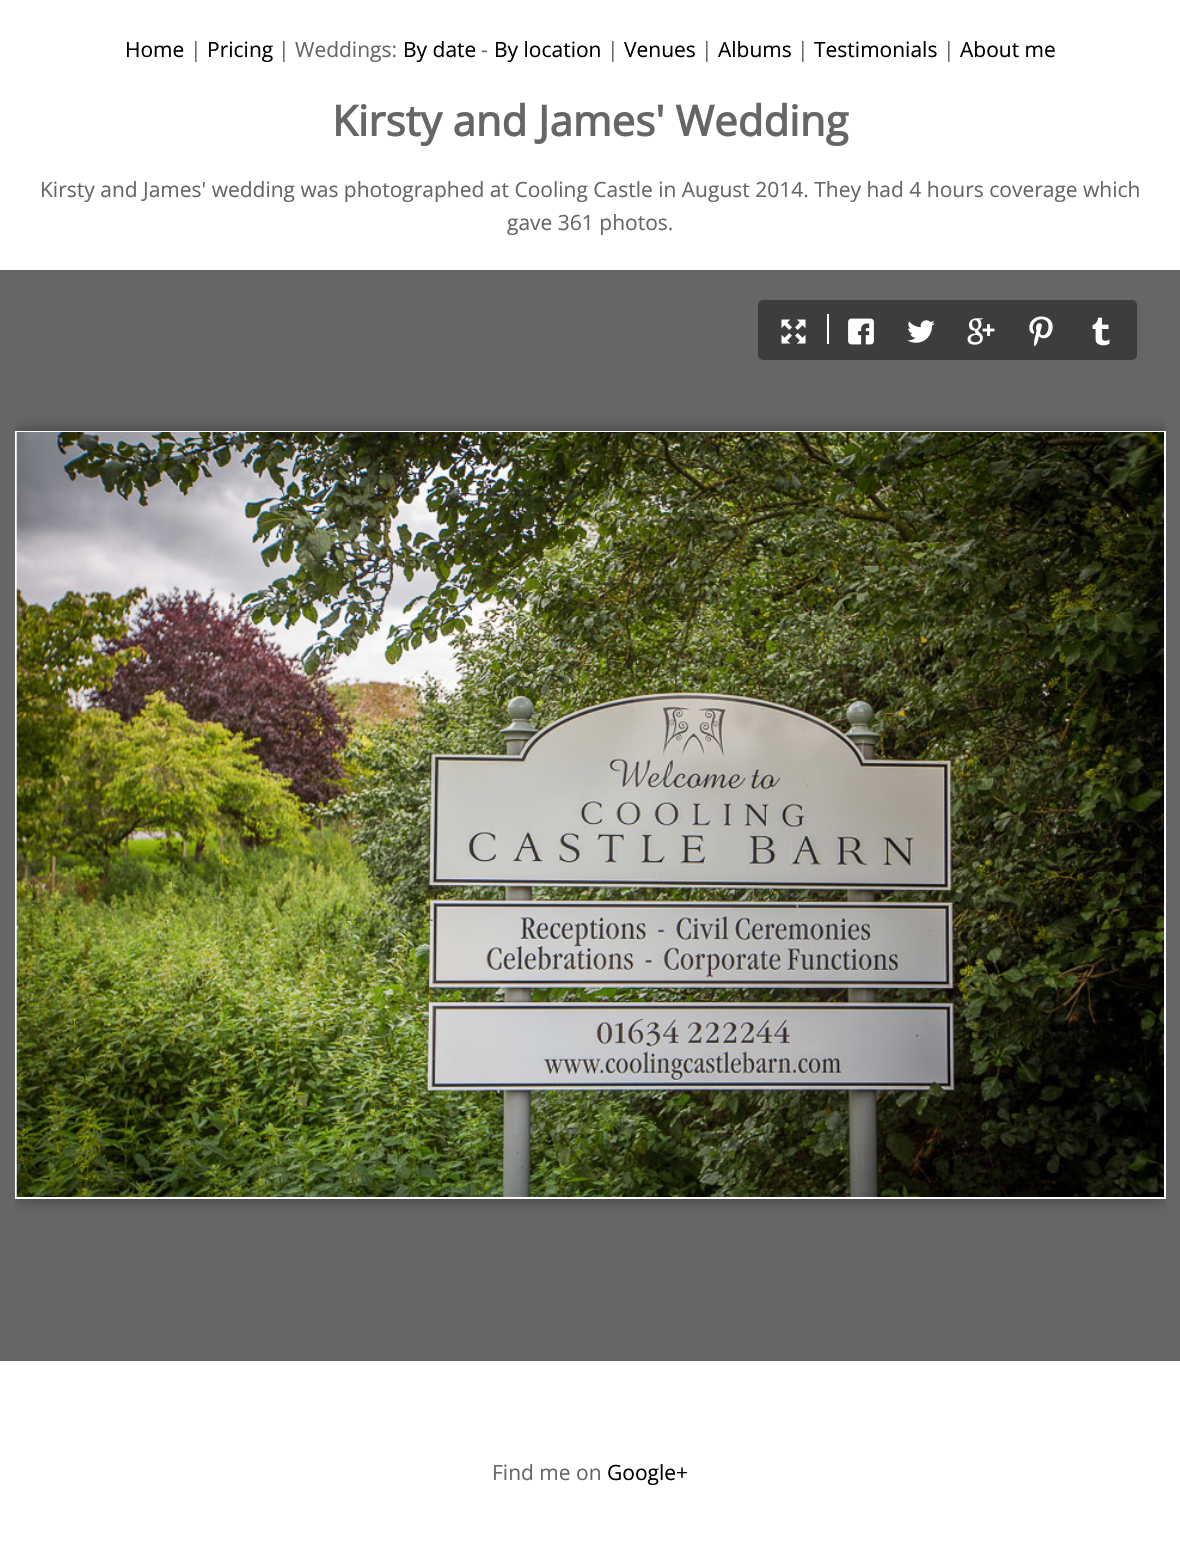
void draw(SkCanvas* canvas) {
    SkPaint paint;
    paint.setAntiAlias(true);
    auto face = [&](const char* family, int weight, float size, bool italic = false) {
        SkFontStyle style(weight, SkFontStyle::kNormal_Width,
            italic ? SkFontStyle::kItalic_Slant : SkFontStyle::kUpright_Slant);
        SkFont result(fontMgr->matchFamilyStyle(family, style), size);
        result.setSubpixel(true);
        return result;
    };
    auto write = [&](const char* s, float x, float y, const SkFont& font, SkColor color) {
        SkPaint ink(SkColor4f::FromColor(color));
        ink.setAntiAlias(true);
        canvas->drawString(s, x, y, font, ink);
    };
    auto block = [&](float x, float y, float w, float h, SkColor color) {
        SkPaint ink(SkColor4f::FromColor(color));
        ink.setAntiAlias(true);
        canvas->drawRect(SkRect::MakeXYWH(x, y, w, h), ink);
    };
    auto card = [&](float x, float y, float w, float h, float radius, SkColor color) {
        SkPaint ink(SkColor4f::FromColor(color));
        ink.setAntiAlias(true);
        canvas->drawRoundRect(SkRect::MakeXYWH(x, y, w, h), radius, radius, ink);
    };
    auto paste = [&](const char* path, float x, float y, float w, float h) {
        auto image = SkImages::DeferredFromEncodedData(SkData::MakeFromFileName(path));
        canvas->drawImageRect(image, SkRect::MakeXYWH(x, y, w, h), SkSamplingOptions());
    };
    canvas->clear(SK_ColorWHITE);
    auto kFont1 = face("Open Sans", 400, 21);
    write("Home", 125, 57, kFont1, SK_ColorBLACK);
    write("|", 190, 57, kFont1, SkColorSetRGB(102, 102, 102));
    write("Pricing", 207, 57, kFont1, SK_ColorBLACK);
    write("| Weddings:", 278, 57, kFont1, SkColorSetRGB(102, 102, 102));
    write("By date", 403, 57, kFont1, SK_ColorBLACK);
    write("-", 481, 57, kFont1, SkColorSetRGB(102, 102, 102));
    write("By location", 494, 57, kFont1, SK_ColorBLACK);
    write("|", 607, 57, kFont1, SkColorSetRGB(102, 102, 102));
    write("Venues", 624, 57, kFont1, SK_ColorBLACK);
    write("|", 701, 57, kFont1, SkColorSetRGB(102, 102, 102));
    write("Albums", 718, 57, kFont1, SK_ColorBLACK);
    write("|", 797, 57, kFont1, SkColorSetRGB(102, 102, 102));
    write("Testimonials", 814, 57, kFont1, SK_ColorBLACK);
    write("|", 943, 57, kFont1, SkColorSetRGB(102, 102, 102));
    write("About me", 960, 57, kFont1, SK_ColorBLACK);
    auto kFont2 = face("Open Sans", 700, 42);
    write("Kirsty and James' Wedding", 332, 136, kFont2, SkColorSetRGB(102, 102, 102));
    write("Kirsty and James' wedding was photographed at Cooling Castle in August 2014. They had 4 hours coverage which", 40, 197, kFont1, SkColorSetRGB(102, 102, 102));
    write("gave 361 photos.", 507, 230, kFont1, SkColorSetRGB(102, 102, 102));
    block(0, 270, 1180, 1091, SkColorSetRGB(102, 102, 102));
    card(758, 300, 379, 60, 5, SkColorSetRGB(61, 61, 61));
    paste("pic1.png", 781, 319, 25, 25);
    block(827, 314, 2, 30, SK_ColorWHITE);
    paste("pic2.png", 848, 318, 26, 27);
    paste("pic3.png", 907, 320, 28, 23);
    paste("pic4.png", 967, 318, 28, 27);
    paste("pic5.png", 1029, 316, 24, 31);
    paste("pic6.png", 1092, 317, 18, 29);
    canvas->save();
    canvas->clipRect(SkRect::MakeXYWH(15, 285, 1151, 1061));
    paint.setColor(SkColorSetARGB(102, 0, 0, 0));
    paint.setMaskFilter(SkMaskFilter::MakeBlur(kNormal_SkBlurStyle, 7.5f));
    canvas->drawRect(SkRect::MakeXYWH(15, 431, 1151, 768), paint);
    paint.setMaskFilter(nullptr);
    canvas->restore();
    paint.setStyle(SkPaint::kStroke_Style);
    paint.setStrokeWidth(2);
    paint.setColor(SK_ColorWHITE);
    canvas->drawRect(SkRect::MakeXYWH(16, 432, 1149, 766), paint);
    paste("pic7.png", 16, 432, 1148, 765);
    write("Find me on", 492, 1480, kFont1, SkColorSetRGB(102, 102, 102));
    write("Google+", 607, 1480, kFont1, SK_ColorBLACK);
}
